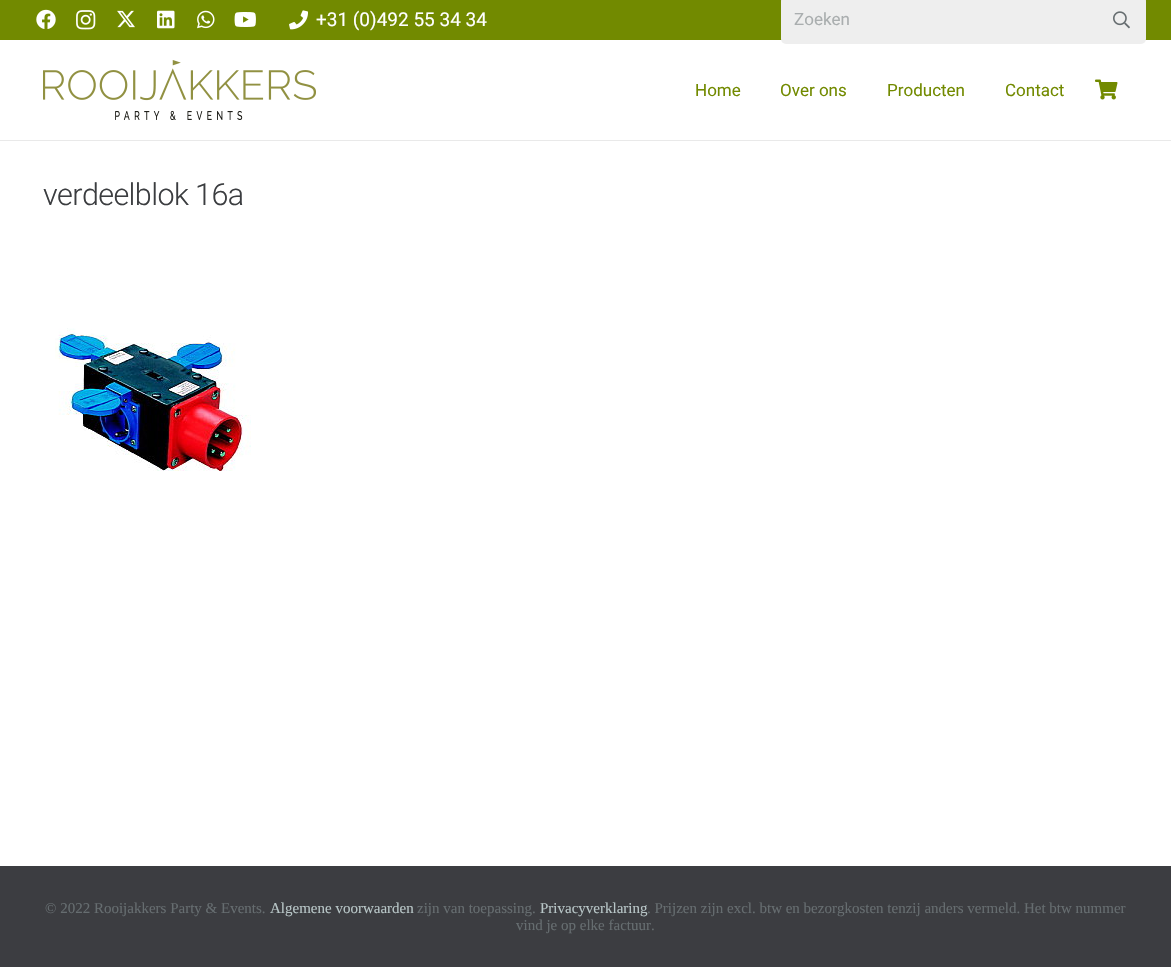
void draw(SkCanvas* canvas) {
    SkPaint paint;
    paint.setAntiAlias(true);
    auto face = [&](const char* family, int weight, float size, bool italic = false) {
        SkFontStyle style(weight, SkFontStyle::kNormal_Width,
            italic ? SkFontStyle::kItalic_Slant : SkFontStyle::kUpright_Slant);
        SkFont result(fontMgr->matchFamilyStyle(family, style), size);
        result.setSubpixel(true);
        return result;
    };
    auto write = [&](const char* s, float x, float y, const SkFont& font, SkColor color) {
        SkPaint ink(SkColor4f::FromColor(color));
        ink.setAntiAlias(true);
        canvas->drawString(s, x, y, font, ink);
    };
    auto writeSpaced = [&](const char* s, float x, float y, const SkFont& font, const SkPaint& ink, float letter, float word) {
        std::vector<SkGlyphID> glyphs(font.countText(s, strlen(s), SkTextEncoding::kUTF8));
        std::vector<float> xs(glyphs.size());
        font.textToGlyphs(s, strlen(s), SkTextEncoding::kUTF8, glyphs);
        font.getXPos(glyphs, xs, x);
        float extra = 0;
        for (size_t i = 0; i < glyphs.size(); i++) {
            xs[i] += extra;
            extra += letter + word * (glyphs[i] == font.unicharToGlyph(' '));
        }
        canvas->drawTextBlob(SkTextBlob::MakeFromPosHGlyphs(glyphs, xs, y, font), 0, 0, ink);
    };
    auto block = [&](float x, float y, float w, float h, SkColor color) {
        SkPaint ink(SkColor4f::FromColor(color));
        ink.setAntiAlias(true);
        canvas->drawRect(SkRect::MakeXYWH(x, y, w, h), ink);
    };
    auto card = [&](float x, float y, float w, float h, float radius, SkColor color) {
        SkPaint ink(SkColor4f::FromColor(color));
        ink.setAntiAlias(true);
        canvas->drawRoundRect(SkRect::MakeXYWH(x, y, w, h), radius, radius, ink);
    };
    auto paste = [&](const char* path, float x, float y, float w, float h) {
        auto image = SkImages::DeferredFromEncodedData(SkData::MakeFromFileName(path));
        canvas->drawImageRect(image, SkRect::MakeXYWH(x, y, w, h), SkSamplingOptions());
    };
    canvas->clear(SK_ColorWHITE);
    block(0, 0, 1171, 40, SkColorSetRGB(114, 138, 0));
    paste("pic1.png", 36, 9, 20, 20);
    paste("pic2.png", 76, 10, 20, 20);
    paste("pic3.png", 117, 10, 18, 18);
    paste("pic4.png", 157, 10, 18, 19);
    paste("pic5.png", 197, 10, 18, 19);
    paste("pic6.png", 234, 12, 22, 15);
    paste("pic7.png", 289, 10, 19, 20);
    auto kFont1 = face("Roboto", 400, 19);
    write("+31 (0)492 55 34 34", 316, 26, kFont1, SK_ColorWHITE);
    card(781, -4, 365, 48, 5, SkColorSetRGB(238, 238, 238));
    paint.setColor(SkColorSetRGB(213, 214, 208));
    canvas->drawPath(SkPathBuilder().moveTo(786, -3).lineTo(1141, -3).cubicTo(1144, -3, 1146, -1, 1146, 2).lineTo(1146, 1).cubicTo(1146, -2, 1144, -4, 1141, -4).lineTo(786, -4).cubicTo(783, -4, 781, -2, 781, 1).lineTo(781, 2).cubicTo(781, -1, 783, -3, 786, -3).close().detach(), paint);
    auto kFont2 = face("Roboto", 400, 17);
    write("Zoeken", 794, 25, kFont2, SkColorSetRGB(170, 174, 175));
    paste("pic8.png", 1113, 11, 17, 18);
    block(0, 140, 1171, 1, SkColorSetRGB(233, 233, 233));
    paste("pic9.png", 43, 60, 273, 60);
    write("Home", 695, 96, kFont2, SkColorSetRGB(114, 138, 0));
    write("Over ons", 780, 96, kFont2, SkColorSetRGB(114, 138, 0));
    write("Producten", 887, 96, kFont2, SkColorSetRGB(114, 138, 0));
    write("Contact", 1005, 96, kFont2, SkColorSetRGB(114, 138, 0));
    paste("pic10.png", 1095, 79, 23, 21);
    auto kFont3 = face("Roboto", 300, 30.5f);
    paint.setColor(SkColorSetRGB(59, 61, 64));
    writeSpaced("verdeelblok 16a", 43, 205, kFont3, paint, -0.6f, 0);
    paste("pic11.png", 55, 328, 196, 143);
    block(0, 866, 1171, 101, SkColorSetRGB(60, 61, 65));
    auto kFont4 = face("Liberation Serif", 400, 15);
    write("© 2022 Rooijakkers Party & Events.", 45, 913, kFont4, SkColorSetRGB(102, 109, 112));
    write("Algemene voorwaarden", 270, 913, kFont4, SkColorSetRGB(184, 198, 199));
    write("zijn van toepassing.", 417, 913, kFont4, SkColorSetRGB(102, 109, 112));
    write("Privacyverklaring", 540, 913, kFont4, SkColorSetRGB(184, 198, 199));
    write(". Prijzen zijn excl. btw en bezorgkosten tenzij anders vermeld. Het btw nummer", 647, 913, kFont4, SkColorSetRGB(102, 109, 112));
    write("vind je op elke factuur.", 516, 930, kFont4, SkColorSetRGB(102, 109, 112));
}
